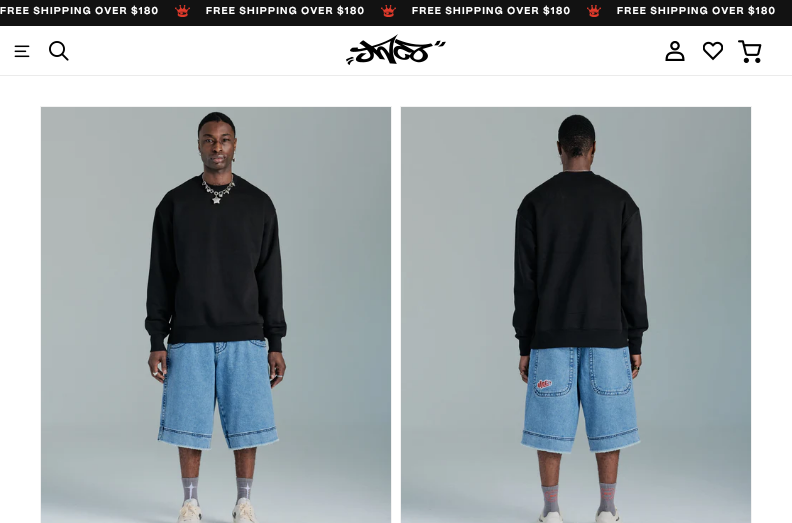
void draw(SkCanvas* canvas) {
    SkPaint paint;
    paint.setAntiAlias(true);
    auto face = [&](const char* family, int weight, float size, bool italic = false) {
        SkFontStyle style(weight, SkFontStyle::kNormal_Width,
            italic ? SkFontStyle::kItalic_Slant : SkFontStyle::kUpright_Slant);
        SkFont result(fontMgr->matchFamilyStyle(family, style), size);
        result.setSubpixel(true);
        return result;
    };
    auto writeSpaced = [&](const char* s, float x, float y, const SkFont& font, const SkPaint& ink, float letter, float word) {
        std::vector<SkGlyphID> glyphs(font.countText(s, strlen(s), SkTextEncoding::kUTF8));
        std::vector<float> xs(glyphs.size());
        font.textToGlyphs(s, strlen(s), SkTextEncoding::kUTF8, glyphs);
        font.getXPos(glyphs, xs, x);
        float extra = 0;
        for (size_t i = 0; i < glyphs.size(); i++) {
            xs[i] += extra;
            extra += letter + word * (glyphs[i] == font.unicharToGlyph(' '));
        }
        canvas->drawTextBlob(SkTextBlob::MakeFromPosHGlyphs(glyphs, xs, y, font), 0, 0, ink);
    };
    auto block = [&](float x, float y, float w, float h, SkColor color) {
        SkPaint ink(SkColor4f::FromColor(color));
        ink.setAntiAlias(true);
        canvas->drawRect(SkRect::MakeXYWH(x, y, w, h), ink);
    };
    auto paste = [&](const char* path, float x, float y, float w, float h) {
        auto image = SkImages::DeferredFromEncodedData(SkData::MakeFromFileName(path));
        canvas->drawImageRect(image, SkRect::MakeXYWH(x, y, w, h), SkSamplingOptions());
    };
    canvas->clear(SK_ColorWHITE);
    block(0, 0, 792, 26, SkColorSetRGB(18, 18, 18));
    auto kFont1 = face("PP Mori", 700, 10);
    paint.setColor(SK_ColorWHITE);
    writeSpaced("FREE SHIPPING OVER $180", 0, 14, kFont1, paint, 1.2f, 0);
    paste("pic1.png", 175, 5, 15, 12);
    writeSpaced("FREE SHIPPING OVER $180", 206, 14, kFont1, paint, 1.2f, 0);
    paste("pic1.png", 381, 5, 15, 12);
    writeSpaced("FREE SHIPPING OVER $180", 412, 14, kFont1, paint, 1.2f, 0);
    paste("pic2.png", 587, 5, 14, 12);
    writeSpaced("FREE SHIPPING OVER $180", 617, 14, kFont1, paint, 1.2f, 0);
    block(0, 75, 792, 1, SkColorSetRGB(235, 235, 235));
    paste("pic3.png", 14, 45, 16, 13);
    paste("pic4.png", 49, 41, 20, 20);
    paste("pic5.png", 346, 34, 100, 31);
    paste("pic6.png", 665, 41, 20, 20);
    paste("pic7.png", 703, 41, 20, 20);
    paste("pic8.png", 738, 40, 24, 23);
    paint.setStyle(SkPaint::kStroke_Style);
    paint.setStrokeWidth(1);
    paint.setColor(SkColorSetRGB(242, 242, 242));
    canvas->drawRect(SkRect::MakeXYWH(40.5f, 106.5f, 351, 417), paint);
    paste("pic9.png", 41, 107, 350, 416);
    canvas->drawRect(SkRect::MakeXYWH(400.5f, 106.5f, 351, 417), paint);
    paste("pic10.png", 401, 107, 350, 416);
}
